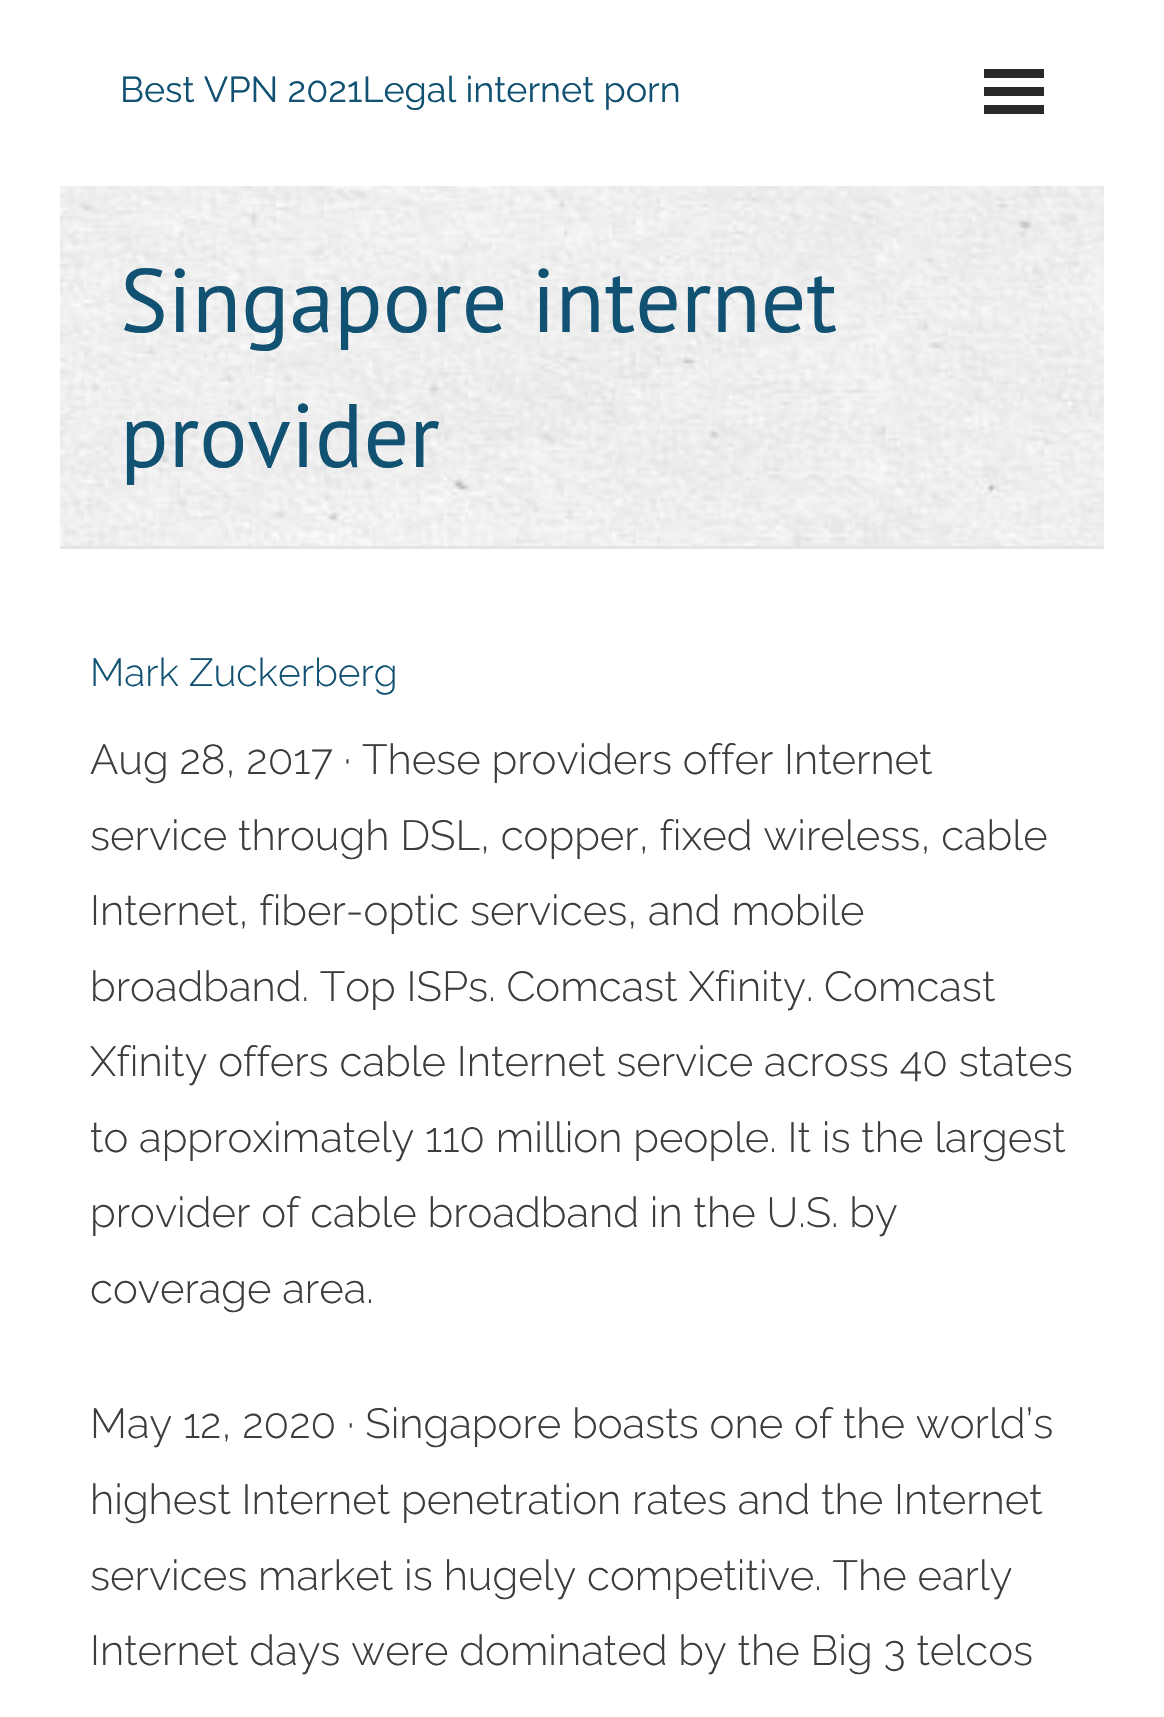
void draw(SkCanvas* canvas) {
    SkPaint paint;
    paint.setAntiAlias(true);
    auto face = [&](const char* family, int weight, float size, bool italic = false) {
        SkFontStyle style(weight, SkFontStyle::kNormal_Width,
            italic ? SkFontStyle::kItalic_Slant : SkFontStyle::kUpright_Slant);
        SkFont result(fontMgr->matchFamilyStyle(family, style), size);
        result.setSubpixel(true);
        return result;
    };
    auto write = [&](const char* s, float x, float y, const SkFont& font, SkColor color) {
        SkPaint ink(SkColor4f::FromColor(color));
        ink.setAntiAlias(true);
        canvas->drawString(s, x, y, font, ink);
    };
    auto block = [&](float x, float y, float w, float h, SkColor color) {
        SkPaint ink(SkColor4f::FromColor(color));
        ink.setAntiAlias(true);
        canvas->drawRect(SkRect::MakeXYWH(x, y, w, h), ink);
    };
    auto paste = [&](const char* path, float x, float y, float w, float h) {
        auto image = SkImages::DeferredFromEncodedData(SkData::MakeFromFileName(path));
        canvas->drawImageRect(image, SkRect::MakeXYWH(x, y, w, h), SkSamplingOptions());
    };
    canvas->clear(SK_ColorWHITE);
    auto kFont1 = face("Raleway", 400, 36);
    write("Best VPN 2021Legal internet porn", 120, 102, kFont1, SkColorSetRGB(17, 81, 114));
    block(984, 69, 60, 9, SkColorSetRGB(41, 41, 41));
    block(984, 87, 60, 9, SkColorSetRGB(41, 41, 41));
    block(984, 105, 60, 9, SkColorSetRGB(41, 41, 41));
    paste("pic1.png", 60, 186, 1044, 360);
    block(60, 546, 1044, 3, SkColorSetRGB(229, 229, 229));
    auto kFont2 = face("PT Sans", 400, 90);
    write("Singapore internet", 120, 332, kFont2, SkColorSetRGB(17, 81, 114));
    write("provider", 120, 467, kFont2, SkColorSetRGB(17, 81, 114));
    auto kFont3 = face("Raleway", 300, 39);
    write("Mark Zuckerberg", 90, 686, kFont3, SkColorSetRGB(17, 81, 114));
    auto kFont4 = face("Raleway", 300, 42);
    write("Aug 28, 2017 · These providers offer Internet", 90, 774, kFont4, SkColorSetRGB(61, 61, 61));
    write("service through DSL, copper, fixed wireless, cable", 90, 850, kFont4, SkColorSetRGB(61, 61, 61));
    write("Internet, fiber-optic services, and mobile", 90, 925, kFont4, SkColorSetRGB(61, 61, 61));
    write("broadband. Top ISPs. Comcast Xfinity. Comcast", 90, 1001, kFont4, SkColorSetRGB(61, 61, 61));
    write("Xfinity offers cable Internet service across 40 states", 90, 1076, kFont4, SkColorSetRGB(61, 61, 61));
    write("to approximately 110 million people. It is the largest", 90, 1152, kFont4, SkColorSetRGB(61, 61, 61));
    write("provider of cable broadband in the U.S. by", 90, 1227, kFont4, SkColorSetRGB(61, 61, 61));
    write("coverage area.", 90, 1303, kFont4, SkColorSetRGB(61, 61, 61));
    write("May 12, 2020 · Singapore boasts one of the world’s", 90, 1438, kFont4, SkColorSetRGB(61, 61, 61));
    write("highest Internet penetration rates and the Internet", 90, 1514, kFont4, SkColorSetRGB(61, 61, 61));
    write("services market is hugely competitive. The early", 90, 1590, kFont4, SkColorSetRGB(61, 61, 61));
    write("Internet days were dominated by the Big 3 telcos", 90, 1665, kFont4, SkColorSetRGB(61, 61, 61));
}
